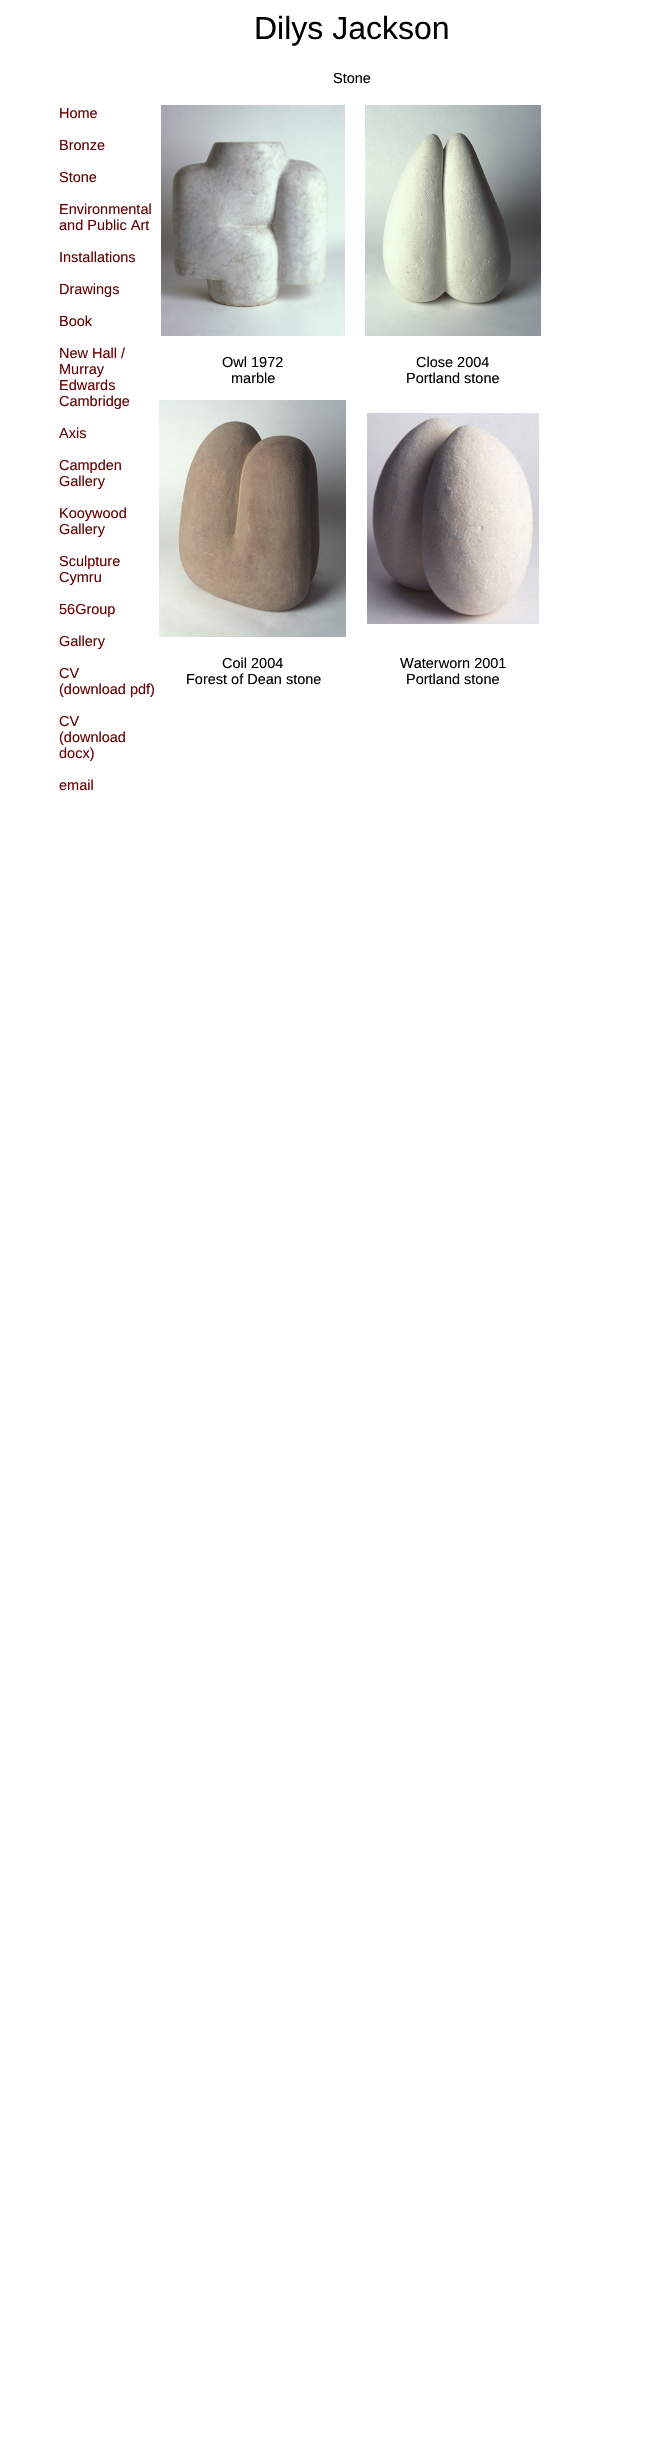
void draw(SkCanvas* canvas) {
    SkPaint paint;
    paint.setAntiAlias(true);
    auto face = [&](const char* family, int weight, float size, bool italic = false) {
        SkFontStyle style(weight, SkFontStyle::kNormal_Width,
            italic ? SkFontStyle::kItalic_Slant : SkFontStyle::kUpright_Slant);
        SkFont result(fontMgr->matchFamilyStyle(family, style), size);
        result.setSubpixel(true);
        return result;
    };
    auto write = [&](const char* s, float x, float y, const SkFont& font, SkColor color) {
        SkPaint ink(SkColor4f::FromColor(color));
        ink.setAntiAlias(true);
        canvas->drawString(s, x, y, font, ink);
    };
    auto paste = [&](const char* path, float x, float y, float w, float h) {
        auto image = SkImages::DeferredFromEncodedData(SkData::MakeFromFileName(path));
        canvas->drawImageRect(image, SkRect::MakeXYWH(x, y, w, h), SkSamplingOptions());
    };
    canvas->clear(SK_ColorWHITE);
    auto kFont1 = face("Liberation Sans", 400, 32);
    write("Dilys Jackson", 254, 39, kFont1, SK_ColorBLACK);
    auto kFont2 = face("Liberation Sans", 400, 14.5f);
    write("Stone", 333, 83, kFont2, SK_ColorBLACK);
    write("Home", 59, 118, kFont2, SkColorSetRGB(102, 0, 0));
    write("Bronze", 59, 150, kFont2, SkColorSetRGB(102, 0, 0));
    write("Stone", 59, 182, kFont2, SkColorSetRGB(102, 0, 0));
    write("Environmental", 59, 214, kFont2, SkColorSetRGB(102, 0, 0));
    write("and Public Art", 59, 230, kFont2, SkColorSetRGB(102, 0, 0));
    write("Installations", 59, 262, kFont2, SkColorSetRGB(102, 0, 0));
    write("Drawings", 59, 294, kFont2, SkColorSetRGB(102, 0, 0));
    write("Book", 59, 326, kFont2, SkColorSetRGB(102, 0, 0));
    write("New Hall /", 59, 358, kFont2, SkColorSetRGB(102, 0, 0));
    write("Murray", 59, 374, kFont2, SkColorSetRGB(102, 0, 0));
    write("Edwards", 59, 390, kFont2, SkColorSetRGB(102, 0, 0));
    write("Cambridge", 59, 406, kFont2, SkColorSetRGB(102, 0, 0));
    write("Axis", 59, 438, kFont2, SkColorSetRGB(102, 0, 0));
    write("Campden", 59, 470, kFont2, SkColorSetRGB(102, 0, 0));
    write("Gallery", 59, 486, kFont2, SkColorSetRGB(102, 0, 0));
    write("Kooywood", 59, 518, kFont2, SkColorSetRGB(102, 0, 0));
    write("Gallery", 59, 534, kFont2, SkColorSetRGB(102, 0, 0));
    write("Sculpture", 59, 566, kFont2, SkColorSetRGB(102, 0, 0));
    write("Cymru", 59, 582, kFont2, SkColorSetRGB(102, 0, 0));
    write("56Group", 59, 614, kFont2, SkColorSetRGB(102, 0, 0));
    write("Gallery", 59, 646, kFont2, SkColorSetRGB(102, 0, 0));
    write("CV", 59, 678, kFont2, SkColorSetRGB(102, 0, 0));
    write("(download pdf)", 59, 694, kFont2, SkColorSetRGB(102, 0, 0));
    write("CV", 59, 726, kFont2, SkColorSetRGB(102, 0, 0));
    write("(download", 59, 742, kFont2, SkColorSetRGB(102, 0, 0));
    write("docx)", 59, 758, kFont2, SkColorSetRGB(102, 0, 0));
    write("email", 59, 790, kFont2, SkColorSetRGB(102, 0, 0));
    paste("pic1.png", 161, 105, 184, 231);
    paste("pic2.png", 365, 105, 176, 231);
    write("Owl 1972", 222, 367, kFont2, SK_ColorBLACK);
    write("marble", 231, 383, kFont2, SK_ColorBLACK);
    write("Close 2004", 416, 367, kFont2, SK_ColorBLACK);
    write("Portland stone", 406, 383, kFont2, SK_ColorBLACK);
    paste("pic3.png", 159, 400, 187, 237);
    paste("pic4.png", 367, 413, 172, 211);
    write("Coil 2004", 222, 668, kFont2, SK_ColorBLACK);
    write("Forest of Dean stone", 186, 684, kFont2, SK_ColorBLACK);
    write("Waterworn 2001", 400, 668, kFont2, SK_ColorBLACK);
    write("Portland stone", 406, 684, kFont2, SK_ColorBLACK);
}
